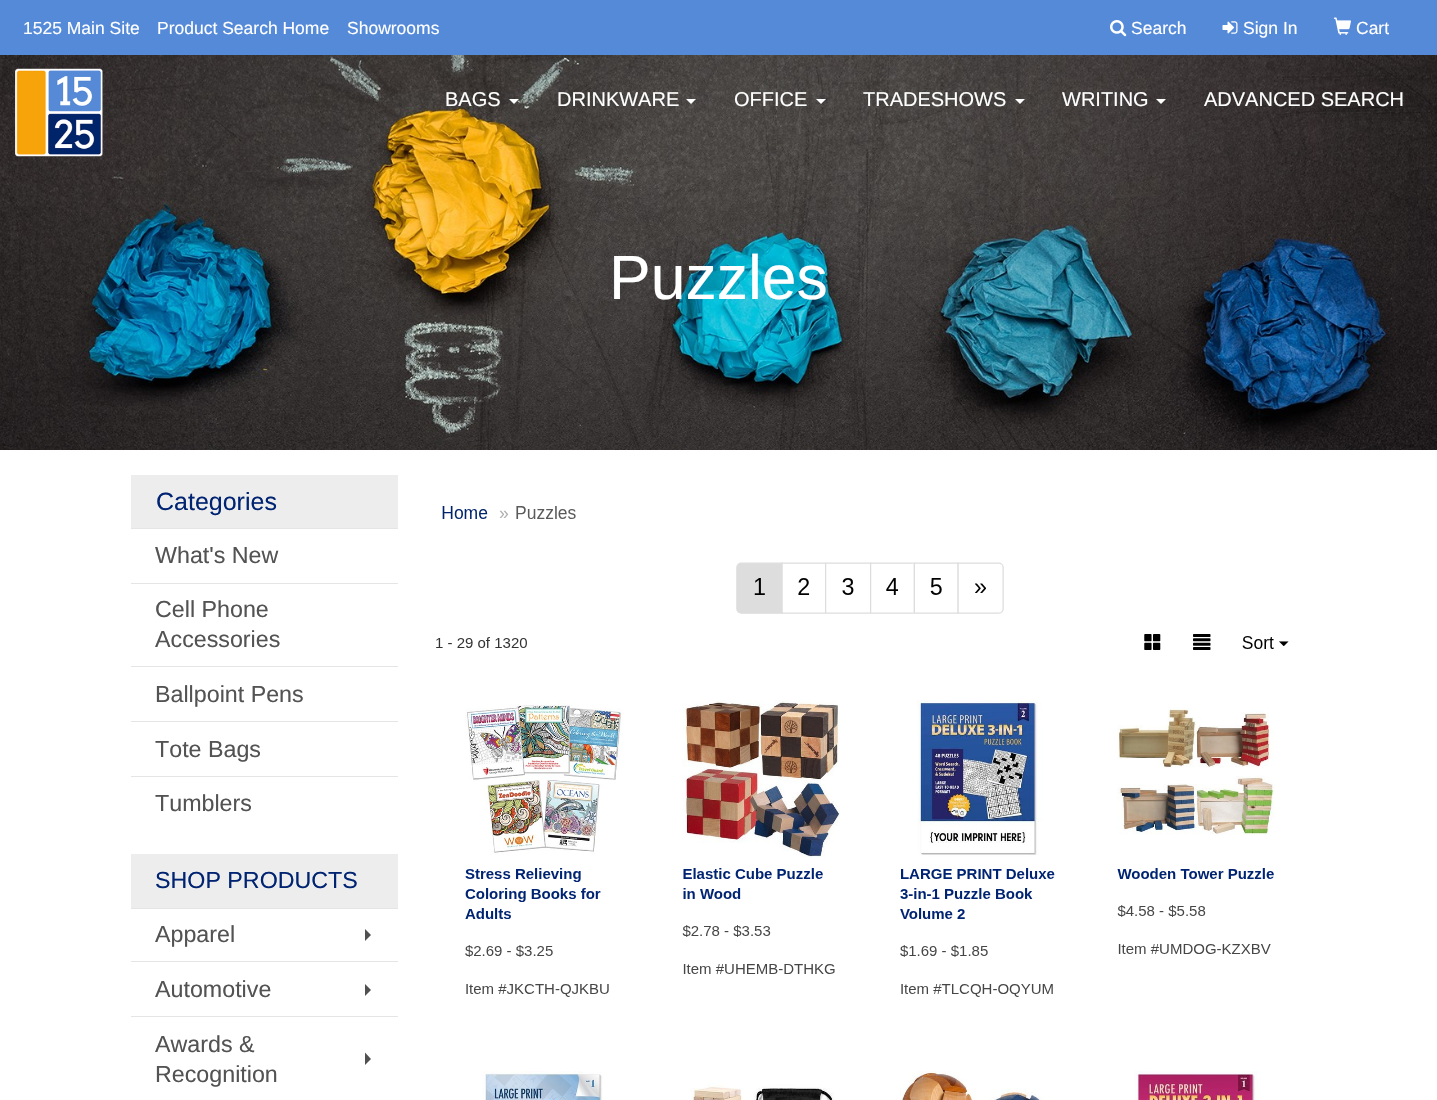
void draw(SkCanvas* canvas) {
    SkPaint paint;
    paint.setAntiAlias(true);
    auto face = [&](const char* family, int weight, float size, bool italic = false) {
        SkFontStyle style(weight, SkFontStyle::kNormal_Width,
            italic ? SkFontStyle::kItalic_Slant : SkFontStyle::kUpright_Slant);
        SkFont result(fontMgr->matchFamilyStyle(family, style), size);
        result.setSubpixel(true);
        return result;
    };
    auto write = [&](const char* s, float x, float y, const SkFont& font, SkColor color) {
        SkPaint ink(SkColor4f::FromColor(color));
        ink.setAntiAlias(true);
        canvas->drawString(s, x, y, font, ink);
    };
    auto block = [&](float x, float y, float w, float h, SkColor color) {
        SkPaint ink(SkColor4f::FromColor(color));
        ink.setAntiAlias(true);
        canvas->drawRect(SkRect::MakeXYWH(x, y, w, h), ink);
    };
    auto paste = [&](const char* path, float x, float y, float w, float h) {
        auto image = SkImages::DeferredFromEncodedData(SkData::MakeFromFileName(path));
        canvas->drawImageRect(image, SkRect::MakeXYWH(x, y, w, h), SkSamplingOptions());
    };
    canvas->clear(SK_ColorWHITE);
    block(0, 0, 1437, 55, SkColorSetRGB(85, 138, 216));
    auto kFont1 = face("Liberation Sans", 400, 17.5f);
    write("1525 Main Site", 23, 34, kFont1, SK_ColorWHITE);
    write("Product Search Home", 157, 34, kFont1, SK_ColorWHITE);
    write("Showrooms", 347, 34, kFont1, SK_ColorWHITE);
    paste("pic1.png", 1110, 20, 17, 17);
    write("Search", 1131, 34, kFont1, SK_ColorWHITE);
    paste("pic2.png", 1222, 21, 16, 13);
    write("Sign In", 1243, 34, kFont1, SK_ColorWHITE);
    paste("pic3.png", 1333, 17, 18, 18);
    write("Cart", 1356, 34, kFont1, SK_ColorWHITE);
    paste("pic5.png", 0, 55, 1437, 395);
    paste("pic4.png", 15, 68, 88, 89);
    auto kFont2 = face("Liberation Sans", 400, 20);
    write("BAGS", 445, 106, kFont2, SK_ColorWHITE);
    paint.setColor(SK_ColorWHITE);
    canvas->drawPath(SkPathBuilder().moveTo(509, 99).lineTo(519, 99).lineTo(514, 104).close().detach(), paint);
    write("DRINKWARE", 557, 106, kFont2, SK_ColorWHITE);
    canvas->drawPath(SkPathBuilder().moveTo(686, 99).lineTo(696, 99).lineTo(691, 104).close().detach(), paint);
    write("OFFICE", 734, 106, kFont2, SK_ColorWHITE);
    canvas->drawPath(SkPathBuilder().moveTo(816, 99).lineTo(826, 99).lineTo(821, 104).close().detach(), paint);
    write("TRADESHOWS", 863, 106, kFont2, SK_ColorWHITE);
    canvas->drawPath(SkPathBuilder().moveTo(1015, 99).lineTo(1025, 99).lineTo(1020, 104).close().detach(), paint);
    write("WRITING", 1062, 106, kFont2, SK_ColorWHITE);
    canvas->drawPath(SkPathBuilder().moveTo(1156, 99).lineTo(1166, 99).lineTo(1161, 104).close().detach(), paint);
    write("ADVANCED SEARCH", 1204, 106, kFont2, SK_ColorWHITE);
    auto kFont3 = face("Liberation Sans", 400, 62.5f);
    write("Puzzles", 609, 299, kFont3, SK_ColorWHITE);
    block(131, 475, 267, 53, SkColorSetRGB(237, 237, 237));
    auto kFont4 = face("Liberation Sans", 400, 25);
    write("Categories", 156, 510, kFont4, SkColorSetRGB(0, 36, 114));
    block(131, 528, 267, 1, SkColorSetRGB(229, 229, 229));
    auto kFont5 = face("Liberation Sans", 400, 23.25f);
    write("What's New", 155, 563, kFont5, SkColorSetRGB(83, 83, 83));
    block(131, 583, 267, 1, SkColorSetRGB(229, 229, 229));
    write("Cell Phone", 155, 617, kFont5, SkColorSetRGB(83, 83, 83));
    write("Accessories", 155, 647, kFont5, SkColorSetRGB(83, 83, 83));
    block(131, 666, 267, 1, SkColorSetRGB(229, 229, 229));
    write("Ballpoint Pens", 155, 702, kFont5, SkColorSetRGB(83, 83, 83));
    block(131, 721, 267, 1, SkColorSetRGB(229, 229, 229));
    write("Tote Bags", 155, 757, kFont5, SkColorSetRGB(83, 83, 83));
    block(131, 776, 267, 1, SkColorSetRGB(229, 229, 229));
    write("Tumblers", 155, 811, kFont5, SkColorSetRGB(83, 83, 83));
    block(131, 854, 267, 54, SkColorSetRGB(237, 237, 237));
    write("SHOP PRODUCTS", 155, 888, kFont5, SkColorSetRGB(0, 36, 114));
    block(131, 908, 267, 1, SkColorSetRGB(229, 229, 229));
    write("Apparel", 155, 942, kFont5, SkColorSetRGB(83, 83, 83));
    paint.setColor(SkColorSetRGB(81, 80, 80));
    canvas->drawPath(SkPathBuilder().moveTo(365, 941).lineTo(365, 929).lineTo(371, 935).close().detach(), paint);
    block(131, 961, 267, 1, SkColorSetRGB(229, 229, 229));
    write("Automotive", 155, 997, kFont5, SkColorSetRGB(83, 83, 83));
    canvas->drawPath(SkPathBuilder().moveTo(365, 996).lineTo(365, 984).lineTo(371, 990).close().detach(), paint);
    block(131, 1016, 267, 1, SkColorSetRGB(229, 229, 229));
    write("Awards &", 155, 1052, kFont5, SkColorSetRGB(83, 83, 83));
    canvas->drawPath(SkPathBuilder().moveTo(365, 1065).lineTo(365, 1052.5f).lineTo(371, 1059).close().detach(), paint);
    write("Recognition", 155, 1082, kFont5, SkColorSetRGB(83, 83, 83));
    paste("pic6.png", 436, 506, 853, 594);
}
